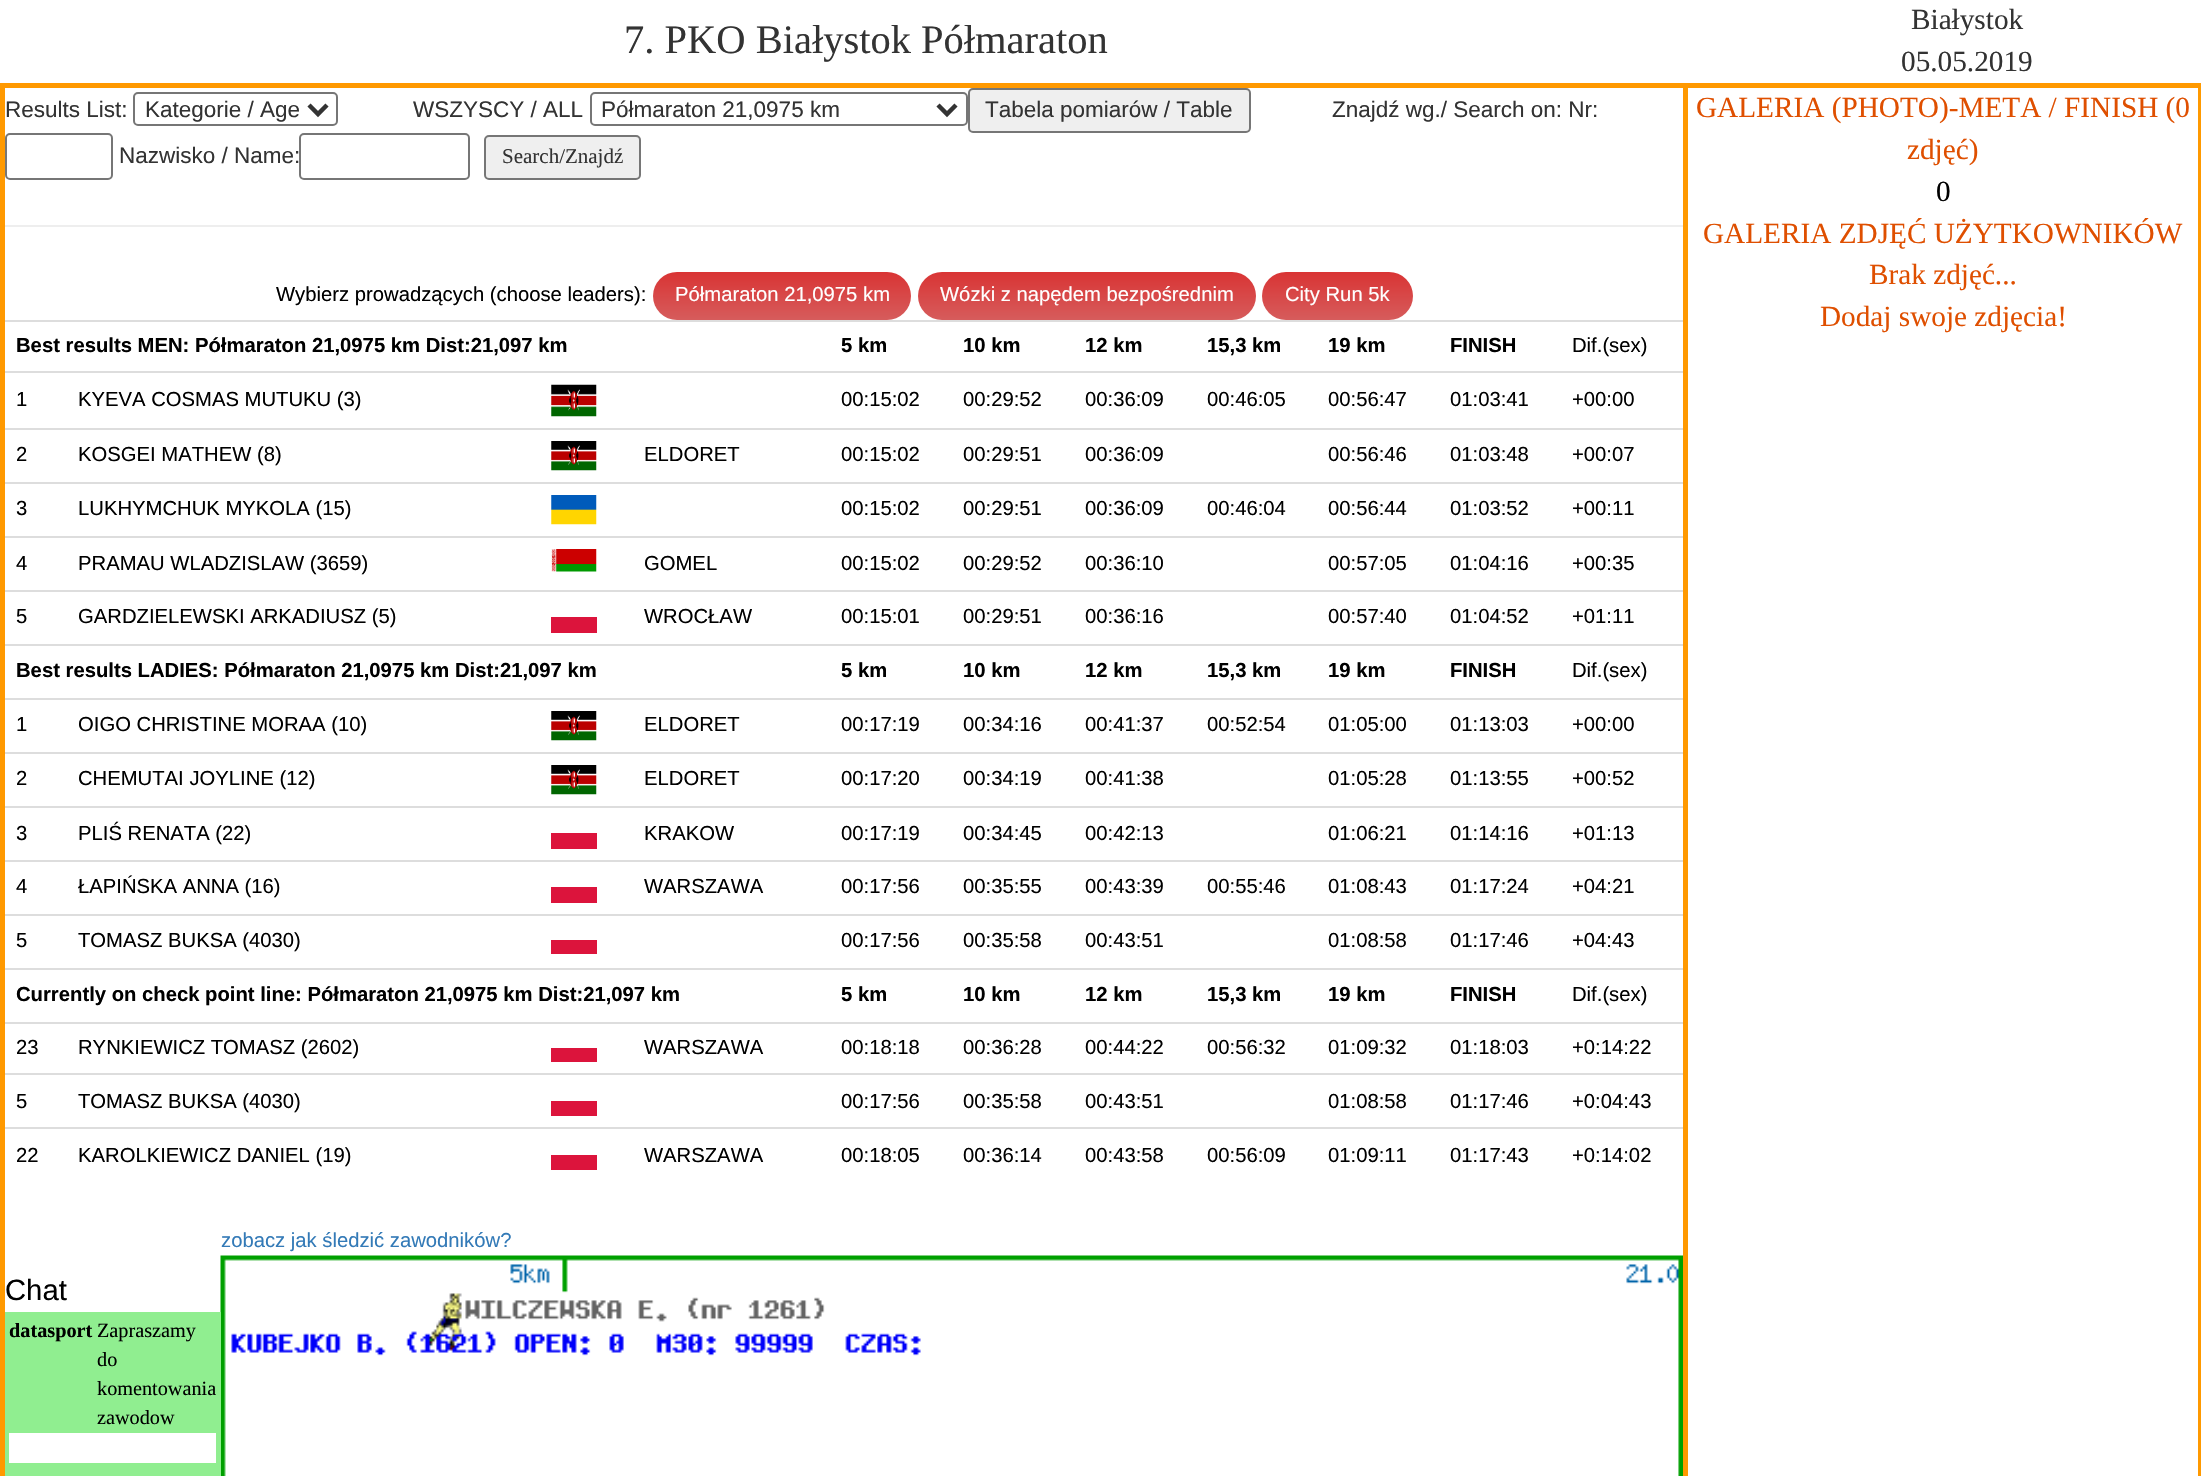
void draw(SkCanvas* canvas) {
    SkPaint paint;
    paint.setAntiAlias(true);
    auto face = [&](const char* family, int weight, float size, bool italic = false) {
        SkFontStyle style(weight, SkFontStyle::kNormal_Width,
            italic ? SkFontStyle::kItalic_Slant : SkFontStyle::kUpright_Slant);
        SkFont result(fontMgr->matchFamilyStyle(family, style), size);
        result.setSubpixel(true);
        return result;
    };
    auto write = [&](const char* s, float x, float y, const SkFont& font, SkColor color) {
        SkPaint ink(SkColor4f::FromColor(color));
        ink.setAntiAlias(true);
        canvas->drawString(s, x, y, font, ink);
    };
    auto block = [&](float x, float y, float w, float h, SkColor color) {
        SkPaint ink(SkColor4f::FromColor(color));
        ink.setAntiAlias(true);
        canvas->drawRect(SkRect::MakeXYWH(x, y, w, h), ink);
    };
    auto paste = [&](const char* path, float x, float y, float w, float h) {
        auto image = SkImages::DeferredFromEncodedData(SkData::MakeFromFileName(path));
        canvas->drawImageRect(image, SkRect::MakeXYWH(x, y, w, h), SkSamplingOptions());
    };
    canvas->clear(SK_ColorWHITE);
    auto kFont1 = face("Liberation Serif", 400, 40.5f);
    write("7. PKO Białystok Półmaraton", 624, 53, kFont1, SkColorSetRGB(51, 51, 51));
    block(0, 83, 2201, 5, SkColorSetRGB(255, 153, 0));
    auto kFont2 = face("Liberation Serif", 400, 29.25f);
    write("Białystok", 1911, 29, kFont2, SkColorSetRGB(51, 51, 51));
    write("05.05.2019", 1901, 71, kFont2, SkColorSetRGB(51, 51, 51));
    block(0, 86, 5, 1390, SkColorSetRGB(255, 153, 0));
    auto kFont3 = face("Liberation Sans", 400, 22.5f);
    write("Results List:", 5, 117, kFont3, SkColorSetRGB(51, 51, 51));
    paint.setStyle(SkPaint::kStroke_Style);
    paint.setStrokeWidth(2);
    paint.setColor(SkColorSetRGB(118, 118, 118));
    canvas->drawRoundRect(SkRect::MakeXYWH(134, 93, 203, 32), 4, 4, paint);
    paint.setStrokeWidth(4.5f);
    paint.setColor(SkColorSetRGB(51, 51, 51));
    canvas->drawPath(SkPathBuilder().moveTo(309, 105).lineTo(318, 114).lineTo(327, 105).detach(), paint);
    write("Kategorie / Age", 145, 117, kFont3, SkColorSetRGB(51, 51, 51));
    write("WSZYSCY / ALL", 413, 117, kFont3, SkColorSetRGB(51, 51, 51));
    paint.setStrokeWidth(2);
    paint.setColor(SkColorSetRGB(118, 118, 118));
    canvas->drawRoundRect(SkRect::MakeXYWH(591, 93, 376, 32), 4, 4, paint);
    paint.setStrokeWidth(4.5f);
    paint.setColor(SkColorSetRGB(51, 51, 51));
    canvas->drawPath(SkPathBuilder().moveTo(938, 105).lineTo(947, 114).lineTo(956, 105).detach(), paint);
    write("Półmaraton 21,0975 km", 601, 117, kFont3, SkColorSetRGB(51, 51, 51));
    paint.setStyle(SkPaint::kFill_Style);
    paint.setColor(SkColorSetRGB(239, 239, 239));
    canvas->drawRoundRect(SkRect::MakeXYWH(969, 89, 281, 43), 4, 4, paint);
    paint.setStyle(SkPaint::kStroke_Style);
    paint.setStrokeWidth(2);
    paint.setColor(SkColorSetRGB(118, 118, 118));
    canvas->drawRoundRect(SkRect::MakeXYWH(969, 89, 281, 43), 4, 4, paint);
    write("Tabela pomiarów / Table", 985, 117, kFont3, SkColorSetRGB(51, 51, 51));
    write("Znajdź wg./ Search on: Nr:", 1332, 117, kFont3, SkColorSetRGB(51, 51, 51));
    canvas->drawRoundRect(SkRect::MakeXYWH(6, 134, 106, 45), 4, 4, paint);
    write("Nazwisko / Name:", 119, 163, kFont3, SkColorSetRGB(51, 51, 51));
    canvas->drawRoundRect(SkRect::MakeXYWH(300, 134, 169, 45), 4, 4, paint);
    paint.setStyle(SkPaint::kFill_Style);
    paint.setColor(SkColorSetRGB(239, 239, 239));
    canvas->drawRoundRect(SkRect::MakeXYWH(485, 136, 155, 43), 4, 4, paint);
    paint.setStyle(SkPaint::kStroke_Style);
    paint.setColor(SkColorSetRGB(118, 118, 118));
    canvas->drawRoundRect(SkRect::MakeXYWH(485, 136, 155, 43), 4, 4, paint);
    auto kFont4 = face("Liberation Serif", 400, 21);
    write("Search/Znajdź", 502, 163, kFont4, SkColorSetRGB(51, 51, 51));
    block(5, 225, 1678, 2, SkColorSetRGB(238, 238, 238));
    auto kFont5 = face("Liberation Sans", 400, 20.25f);
    write("Wybierz prowadzących (choose leaders):", 276, 301, kFont5, SK_ColorBLACK);
    paint.setStyle(SkPaint::kFill_Style);
    {
        const SkColor colors[] = {SkColorSetRGB(217, 52, 52), SkColorSetRGB(214, 92, 92)};
        const float stops[] = {0, 1};
        const SkPoint ends[] = {{782, 272}, {782, 320}};
        paint.setShader(SkGradientShader::MakeLinear(ends, colors, stops, 2, SkTileMode::kClamp));
        paint.setAlpha(255);
    }
    canvas->drawRoundRect(SkRect::MakeXYWH(653, 272, 258, 48), 24, 24, paint);
    write("Półmaraton 21,0975 km", 675, 301, kFont5, SK_ColorWHITE);
    {
        const SkColor colors[] = {SkColorSetRGB(217, 52, 52), SkColorSetRGB(214, 92, 92)};
        const float stops[] = {0, 1};
        const SkPoint ends[] = {{1087, 272}, {1087, 320}};
        paint.setShader(SkGradientShader::MakeLinear(ends, colors, stops, 2, SkTileMode::kClamp));
        paint.setAlpha(255);
    }
    canvas->drawRoundRect(SkRect::MakeXYWH(918, 272, 338, 48), 24, 24, paint);
    write("Wózki z napędem bezpośrednim", 940, 301, kFont5, SK_ColorWHITE);
    {
        const SkColor colors[] = {SkColorSetRGB(217, 52, 52), SkColorSetRGB(214, 92, 92)};
        const float stops[] = {0, 1};
        const SkPoint ends[] = {{1338, 272}, {1338, 320}};
        paint.setShader(SkGradientShader::MakeLinear(ends, colors, stops, 2, SkTileMode::kClamp));
        paint.setAlpha(255);
    }
    canvas->drawRoundRect(SkRect::MakeXYWH(1262, 272, 151, 48), 24, 24, paint);
    write("City Run 5k", 1285, 301, kFont5, SK_ColorWHITE);
    auto kFont6 = face("Liberation Sans", 700, 20.25f);
    write("Best results MEN: Półmaraton 21,0975 km Dist:21,097 km", 16, 352, kFont6, SK_ColorBLACK);
    write("5 km", 841, 352, kFont6, SK_ColorBLACK);
    write("10 km", 963, 352, kFont6, SK_ColorBLACK);
    write("12 km", 1085, 352, kFont6, SK_ColorBLACK);
    write("15,3 km", 1207, 352, kFont6, SK_ColorBLACK);
    write("19 km", 1328, 352, kFont6, SK_ColorBLACK);
    write("FINISH", 1450, 352, kFont6, SK_ColorBLACK);
    block(5, 320, 1680, 2, SkColorSetRGB(221, 221, 221));
    write("Dif.(sex)", 1572, 352, kFont5, SK_ColorBLACK);
    write("1", 16, 406, kFont5, SK_ColorBLACK);
    write("KYEVA COSMAS MUTUKU (3)", 78, 406, kFont5, SK_ColorBLACK);
    paste("pic1.png", 551, 384, 46, 33);
    write("00:15:02", 841, 406, kFont5, SK_ColorBLACK);
    write("00:29:52", 963, 406, kFont5, SK_ColorBLACK);
    write("00:36:09", 1085, 406, kFont5, SK_ColorBLACK);
    write("00:46:05", 1207, 406, kFont5, SK_ColorBLACK);
    write("00:56:47", 1328, 406, kFont5, SK_ColorBLACK);
    write("01:03:41", 1450, 406, kFont5, SK_ColorBLACK);
    block(5, 371, 1680, 2, SkColorSetRGB(221, 221, 221));
    write("+00:00", 1572, 406, kFont5, SK_ColorBLACK);
    write("2", 16, 461, kFont5, SK_ColorBLACK);
    write("KOSGEI MATHEW (8)", 78, 461, kFont5, SK_ColorBLACK);
    paste("pic2.png", 551, 441, 46, 30);
    write("ELDORET", 644, 461, kFont5, SK_ColorBLACK);
    write("00:15:02", 841, 461, kFont5, SK_ColorBLACK);
    write("00:29:51", 963, 461, kFont5, SK_ColorBLACK);
    write("00:36:09", 1085, 461, kFont5, SK_ColorBLACK);
    write("00:56:46", 1328, 461, kFont5, SK_ColorBLACK);
    write("01:03:48", 1450, 461, kFont5, SK_ColorBLACK);
    block(5, 428, 1680, 2, SkColorSetRGB(221, 221, 221));
    write("+00:07", 1572, 461, kFont5, SK_ColorBLACK);
    write("3", 16, 515, kFont5, SK_ColorBLACK);
    write("LUKHYMCHUK MYKOLA (15)", 78, 515, kFont5, SK_ColorBLACK);
    paste("pic3.png", 551, 495, 46, 30);
    write("00:15:02", 841, 515, kFont5, SK_ColorBLACK);
    write("00:29:51", 963, 515, kFont5, SK_ColorBLACK);
    write("00:36:09", 1085, 515, kFont5, SK_ColorBLACK);
    write("00:46:04", 1207, 515, kFont5, SK_ColorBLACK);
    write("00:56:44", 1328, 515, kFont5, SK_ColorBLACK);
    write("01:03:52", 1450, 515, kFont5, SK_ColorBLACK);
    block(5, 482, 1680, 2, SkColorSetRGB(221, 221, 221));
    write("+00:11", 1572, 515, kFont5, SK_ColorBLACK);
    write("4", 16, 570, kFont5, SK_ColorBLACK);
    write("PRAMAU WLADZISLAW (3659)", 78, 570, kFont5, SK_ColorBLACK);
    paste("pic4.png", 551, 549, 46, 23);
    write("GOMEL", 644, 570, kFont5, SK_ColorBLACK);
    write("00:15:02", 841, 570, kFont5, SK_ColorBLACK);
    write("00:29:52", 963, 570, kFont5, SK_ColorBLACK);
    write("00:36:10", 1085, 570, kFont5, SK_ColorBLACK);
    write("00:57:05", 1328, 570, kFont5, SK_ColorBLACK);
    write("01:04:16", 1450, 570, kFont5, SK_ColorBLACK);
    block(5, 536, 1680, 2, SkColorSetRGB(221, 221, 221));
    write("+00:35", 1572, 570, kFont5, SK_ColorBLACK);
    write("5", 16, 623, kFont5, SK_ColorBLACK);
    write("GARDZIELEWSKI ARKADIUSZ (5)", 78, 623, kFont5, SK_ColorBLACK);
    block(551, 617, 46, 16, SkColorSetRGB(220, 20, 60));
    write("WROCŁAW", 644, 623, kFont5, SK_ColorBLACK);
    write("00:15:01", 841, 623, kFont5, SK_ColorBLACK);
    write("00:29:51", 963, 623, kFont5, SK_ColorBLACK);
    write("00:36:16", 1085, 623, kFont5, SK_ColorBLACK);
    write("00:57:40", 1328, 623, kFont5, SK_ColorBLACK);
    write("01:04:52", 1450, 623, kFont5, SK_ColorBLACK);
    block(5, 590, 1680, 2, SkColorSetRGB(221, 221, 221));
    write("+01:11", 1572, 623, kFont5, SK_ColorBLACK);
    write("Best results LADIES: Półmaraton 21,0975 km Dist:21,097 km", 16, 677, kFont6, SK_ColorBLACK);
    write("5 km", 841, 677, kFont6, SK_ColorBLACK);
    write("10 km", 963, 677, kFont6, SK_ColorBLACK);
    write("12 km", 1085, 677, kFont6, SK_ColorBLACK);
    write("15,3 km", 1207, 677, kFont6, SK_ColorBLACK);
    write("19 km", 1328, 677, kFont6, SK_ColorBLACK);
    write("FINISH", 1450, 677, kFont6, SK_ColorBLACK);
    block(5, 644, 1680, 2, SkColorSetRGB(221, 221, 221));
    write("Dif.(sex)", 1572, 677, kFont5, SK_ColorBLACK);
    write("1", 16, 731, kFont5, SK_ColorBLACK);
    write("OIGO CHRISTINE MORAA (10)", 78, 731, kFont5, SK_ColorBLACK);
    paste("pic2.png", 551, 711, 46, 30);
    write("ELDORET", 644, 731, kFont5, SK_ColorBLACK);
    write("00:17:19", 841, 731, kFont5, SK_ColorBLACK);
    write("00:34:16", 963, 731, kFont5, SK_ColorBLACK);
    write("00:41:37", 1085, 731, kFont5, SK_ColorBLACK);
    write("00:52:54", 1207, 731, kFont5, SK_ColorBLACK);
    write("01:05:00", 1328, 731, kFont5, SK_ColorBLACK);
    write("01:13:03", 1450, 731, kFont5, SK_ColorBLACK);
    block(5, 698, 1680, 2, SkColorSetRGB(221, 221, 221));
    write("+00:00", 1572, 731, kFont5, SK_ColorBLACK);
    write("2", 16, 785, kFont5, SK_ColorBLACK);
    write("CHEMUTAI JOYLINE (12)", 78, 785, kFont5, SK_ColorBLACK);
    paste("pic2.png", 551, 765, 46, 30);
    write("ELDORET", 644, 785, kFont5, SK_ColorBLACK);
    write("00:17:20", 841, 785, kFont5, SK_ColorBLACK);
    write("00:34:19", 963, 785, kFont5, SK_ColorBLACK);
    write("00:41:38", 1085, 785, kFont5, SK_ColorBLACK);
    write("01:05:28", 1328, 785, kFont5, SK_ColorBLACK);
    write("01:13:55", 1450, 785, kFont5, SK_ColorBLACK);
    block(5, 752, 1680, 2, SkColorSetRGB(221, 221, 221));
    write("+00:52", 1572, 785, kFont5, SK_ColorBLACK);
    write("3", 16, 840, kFont5, SK_ColorBLACK);
    write("PLIŚ RENATA (22)", 78, 840, kFont5, SK_ColorBLACK);
    block(551, 833, 46, 16, SkColorSetRGB(220, 20, 60));
    write("KRAKOW", 644, 840, kFont5, SK_ColorBLACK);
    write("00:17:19", 841, 840, kFont5, SK_ColorBLACK);
    write("00:34:45", 963, 840, kFont5, SK_ColorBLACK);
    write("00:42:13", 1085, 840, kFont5, SK_ColorBLACK);
    write("01:06:21", 1328, 840, kFont5, SK_ColorBLACK);
    write("01:14:16", 1450, 840, kFont5, SK_ColorBLACK);
    block(5, 806, 1680, 2, SkColorSetRGB(221, 221, 221));
    write("+01:13", 1572, 840, kFont5, SK_ColorBLACK);
    write("4", 16, 893, kFont5, SK_ColorBLACK);
    write("ŁAPIŃSKA ANNA (16)", 78, 893, kFont5, SK_ColorBLACK);
    block(551, 887, 46, 16, SkColorSetRGB(220, 20, 60));
    write("WARSZAWA", 644, 893, kFont5, SK_ColorBLACK);
    write("00:17:56", 841, 893, kFont5, SK_ColorBLACK);
    write("00:35:55", 963, 893, kFont5, SK_ColorBLACK);
    write("00:43:39", 1085, 893, kFont5, SK_ColorBLACK);
    write("00:55:46", 1207, 893, kFont5, SK_ColorBLACK);
    write("01:08:43", 1328, 893, kFont5, SK_ColorBLACK);
    write("01:17:24", 1450, 893, kFont5, SK_ColorBLACK);
    block(5, 860, 1680, 2, SkColorSetRGB(221, 221, 221));
    write("+04:21", 1572, 893, kFont5, SK_ColorBLACK);
    write("5", 16, 947, kFont5, SK_ColorBLACK);
    write("TOMASZ BUKSA (4030)", 78, 947, kFont5, SK_ColorBLACK);
    block(551, 940, 46, 14, SkColorSetRGB(220, 20, 60));
    write("00:17:56", 841, 947, kFont5, SK_ColorBLACK);
    write("00:35:58", 963, 947, kFont5, SK_ColorBLACK);
    write("00:43:51", 1085, 947, kFont5, SK_ColorBLACK);
    write("01:08:58", 1328, 947, kFont5, SK_ColorBLACK);
    write("01:17:46", 1450, 947, kFont5, SK_ColorBLACK);
    block(5, 914, 1680, 2, SkColorSetRGB(221, 221, 221));
    write("+04:43", 1572, 947, kFont5, SK_ColorBLACK);
    write("Currently on check point line: Półmaraton 21,0975 km Dist:21,097 km", 16, 1001, kFont6, SK_ColorBLACK);
    write("5 km", 841, 1001, kFont6, SK_ColorBLACK);
    write("10 km", 963, 1001, kFont6, SK_ColorBLACK);
    write("12 km", 1085, 1001, kFont6, SK_ColorBLACK);
    write("15,3 km", 1207, 1001, kFont6, SK_ColorBLACK);
    write("19 km", 1328, 1001, kFont6, SK_ColorBLACK);
    write("FINISH", 1450, 1001, kFont6, SK_ColorBLACK);
    block(5, 968, 1680, 2, SkColorSetRGB(221, 221, 221));
    write("Dif.(sex)", 1572, 1001, kFont5, SK_ColorBLACK);
    write("23", 16, 1054, kFont5, SK_ColorBLACK);
    write("RYNKIEWICZ TOMASZ (2602)", 78, 1054, kFont5, SK_ColorBLACK);
    block(551, 1048, 46, 14, SkColorSetRGB(220, 20, 60));
    write("WARSZAWA", 644, 1054, kFont5, SK_ColorBLACK);
    write("00:18:18", 841, 1054, kFont5, SK_ColorBLACK);
    write("00:36:28", 963, 1054, kFont5, SK_ColorBLACK);
    write("00:44:22", 1085, 1054, kFont5, SK_ColorBLACK);
    write("00:56:32", 1207, 1054, kFont5, SK_ColorBLACK);
    write("01:09:32", 1328, 1054, kFont5, SK_ColorBLACK);
    write("01:18:03", 1450, 1054, kFont5, SK_ColorBLACK);
    block(5, 1022, 1680, 2, SkColorSetRGB(221, 221, 221));
    write("+0:14:22", 1572, 1054, kFont5, SK_ColorBLACK);
    write("5", 16, 1108, kFont5, SK_ColorBLACK);
    write("TOMASZ BUKSA (4030)", 78, 1108, kFont5, SK_ColorBLACK);
    block(551, 1101, 46, 15, SkColorSetRGB(220, 20, 60));
    write("00:17:56", 841, 1108, kFont5, SK_ColorBLACK);
    write("00:35:58", 963, 1108, kFont5, SK_ColorBLACK);
    write("00:43:51", 1085, 1108, kFont5, SK_ColorBLACK);
    write("01:08:58", 1328, 1108, kFont5, SK_ColorBLACK);
    write("01:17:46", 1450, 1108, kFont5, SK_ColorBLACK);
    block(5, 1073, 1680, 2, SkColorSetRGB(221, 221, 221));
    write("+0:04:43", 1572, 1108, kFont5, SK_ColorBLACK);
    write("22", 16, 1162, kFont5, SK_ColorBLACK);
    write("KAROLKIEWICZ DANIEL (19)", 78, 1162, kFont5, SK_ColorBLACK);
    block(551, 1155, 46, 15, SkColorSetRGB(220, 20, 60));
    write("WARSZAWA", 644, 1162, kFont5, SK_ColorBLACK);
    write("00:18:05", 841, 1162, kFont5, SK_ColorBLACK);
    write("00:36:14", 963, 1162, kFont5, SK_ColorBLACK);
    write("00:43:58", 1085, 1162, kFont5, SK_ColorBLACK);
    write("00:56:09", 1207, 1162, kFont5, SK_ColorBLACK);
    write("01:09:11", 1328, 1162, kFont5, SK_ColorBLACK);
    write("01:17:43", 1450, 1162, kFont5, SK_ColorBLACK);
    block(5, 1127, 1680, 2, SkColorSetRGB(221, 221, 221));
    write("+0:14:02", 1572, 1162, kFont5, SK_ColorBLACK);
    write("zobacz jak śledzić zawodników?", 221, 1247, kFont5, SkColorSetRGB(51, 122, 183));
    paste("pic5.png", 220, 1255, 1463, 221);
    auto kFont7 = face("Liberation Sans", 400, 29.25f);
    write("Chat", 5, 1300, kFont7, SK_ColorBLACK);
    paint.setStyle(SkPaint::kStroke_Style);
    paint.setStrokeWidth(5);
    paint.setShader(nullptr);
    paint.setColor(SkColorSetRGB(144, 238, 144));
    canvas->drawRect(SkRect::MakeXYWH(7.5f, 1314.5f, 211, 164), paint);
    block(10, 1317, 206, 116, SkColorSetRGB(144, 238, 144));
    auto kFont8 = face("Liberation Serif", 700, 20.25f);
    write("datasport", 9, 1337, kFont8, SK_ColorBLACK);
    auto kFont9 = face("Liberation Serif", 400, 20.25f);
    write("Zapraszamy", 97, 1337, kFont9, SK_ColorBLACK);
    write("do", 97, 1366, kFont9, SK_ColorBLACK);
    write("komentowania", 97, 1395, kFont9, SK_ColorBLACK);
    write("zawodow", 97, 1424, kFont9, SK_ColorBLACK);
    block(9, 1433, 1, 30, SK_ColorWHITE);
    block(10, 1463, 206, 13, SkColorSetRGB(144, 238, 144));
    block(2198, 86, 3, 1390, SkColorSetRGB(255, 153, 0));
    block(1683, 86, 5, 1390, SkColorSetRGB(255, 153, 0));
    write("GALERIA (PHOTO)-META / FINISH (0", 1696, 117, kFont2, SkColorSetRGB(223, 79, 0));
    write("zdjęć)", 1907, 159, kFont2, SkColorSetRGB(223, 79, 0));
    write("0", 1936, 201, kFont2, SK_ColorBLACK);
    write("GALERIA ZDJĘĆ UŻYTKOWNIKÓW", 1703, 243, kFont2, SkColorSetRGB(223, 79, 0));
    write("Brak zdjęć...", 1869, 284, kFont2, SkColorSetRGB(223, 79, 0));
    write("Dodaj swoje zdjęcia!", 1820, 326, kFont2, SkColorSetRGB(223, 79, 0));
}
